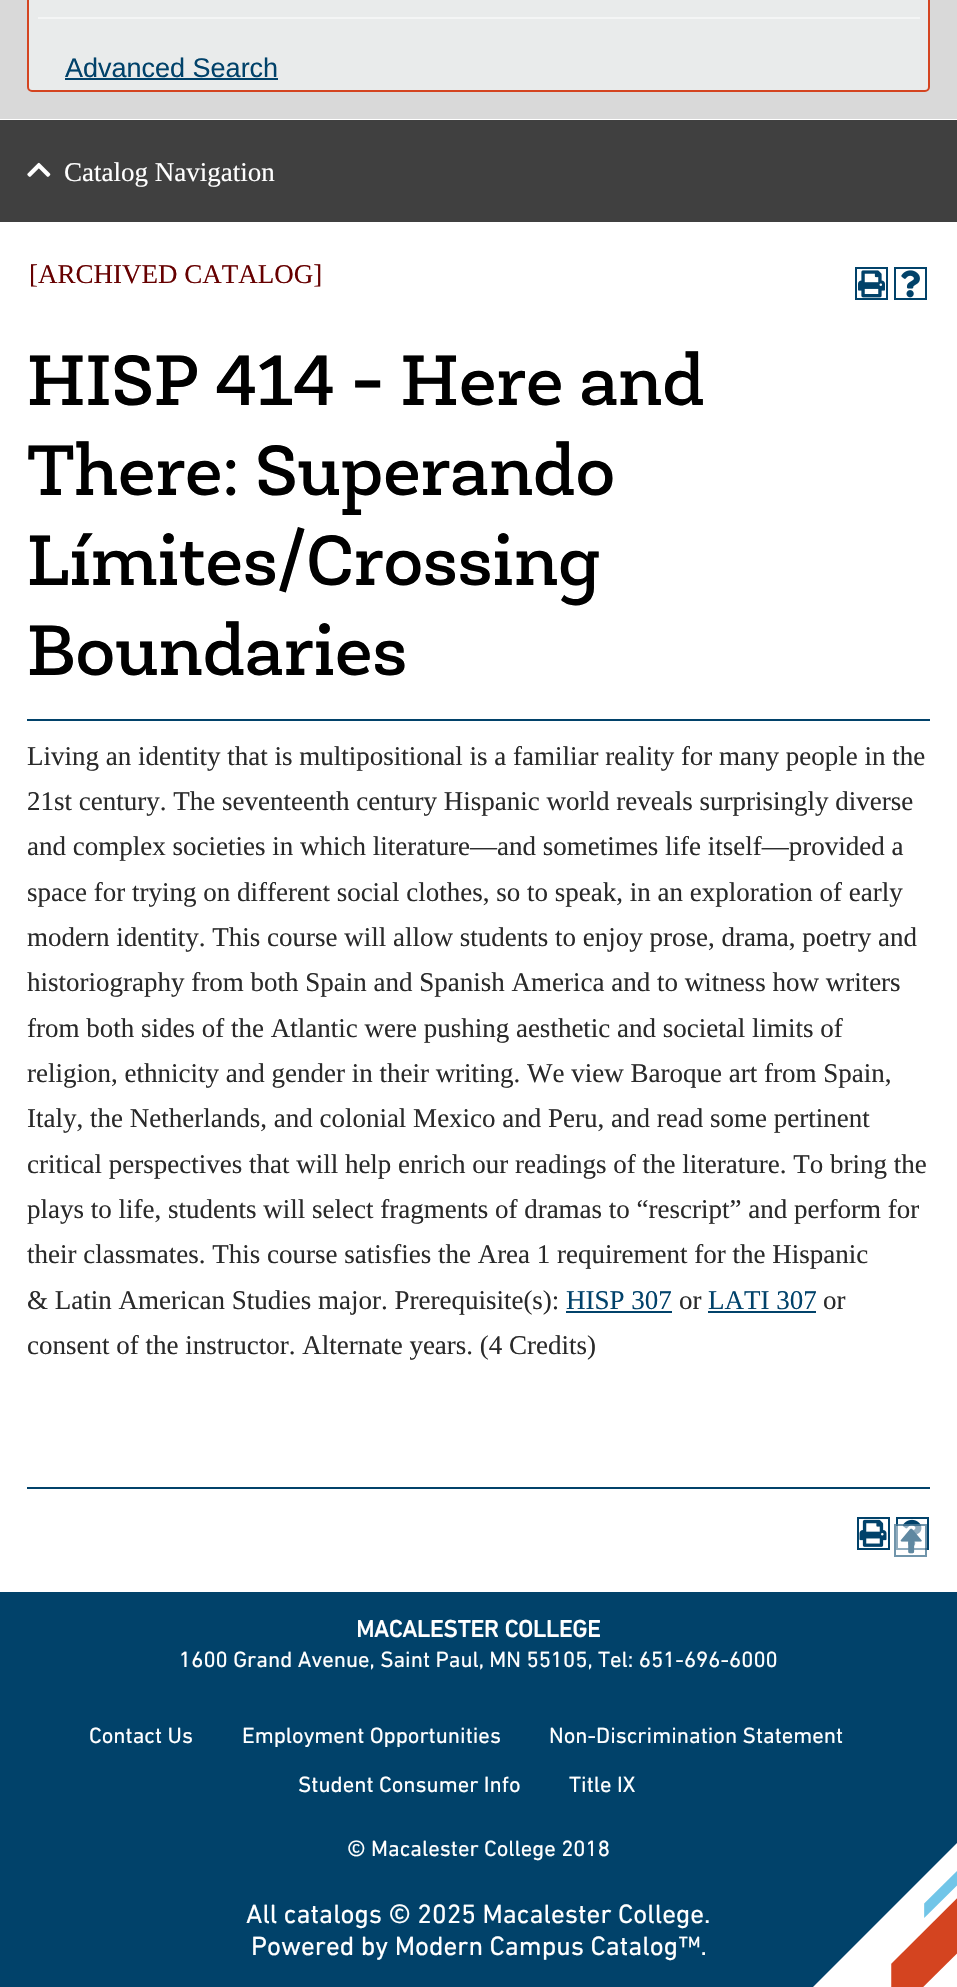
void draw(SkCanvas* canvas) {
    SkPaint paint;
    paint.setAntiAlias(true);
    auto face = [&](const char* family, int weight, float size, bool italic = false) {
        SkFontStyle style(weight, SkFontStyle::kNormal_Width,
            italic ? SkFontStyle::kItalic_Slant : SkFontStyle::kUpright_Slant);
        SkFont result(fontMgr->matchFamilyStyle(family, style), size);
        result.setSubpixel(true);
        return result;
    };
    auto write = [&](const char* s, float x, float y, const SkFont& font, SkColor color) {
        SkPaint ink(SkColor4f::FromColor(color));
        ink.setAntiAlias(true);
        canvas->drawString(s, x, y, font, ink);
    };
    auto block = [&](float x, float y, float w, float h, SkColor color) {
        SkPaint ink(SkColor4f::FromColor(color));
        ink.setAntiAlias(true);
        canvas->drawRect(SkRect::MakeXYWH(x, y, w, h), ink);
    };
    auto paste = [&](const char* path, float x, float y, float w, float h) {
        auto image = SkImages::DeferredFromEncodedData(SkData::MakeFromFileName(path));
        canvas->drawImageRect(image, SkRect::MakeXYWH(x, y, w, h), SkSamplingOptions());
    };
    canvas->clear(SK_ColorWHITE);
    block(0, 0, 957, 119, SkColorSetRGB(217, 217, 217));
    paint.setColor(SkColorSetRGB(233, 235, 235));
    canvas->drawRoundRect(SkRect::MakeXYWH(28, -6, 901, 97), 4, 4, paint);
    paint.setStyle(SkPaint::kStroke_Style);
    paint.setStrokeWidth(2);
    paint.setColor(SkColorSetRGB(212, 68, 32));
    canvas->drawRoundRect(SkRect::MakeXYWH(28, -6, 901, 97), 4, 4, paint);
    block(38, 17, 882, 2, SkColorSetRGB(244, 245, 245));
    auto kFont1 = face("Liberation Sans", 400, 27);
    write("Advanced Search", 65, 77, kFont1, SkColorSetRGB(1, 66, 106));
    block(65, 78, 213, 2, SkColorSetRGB(1, 66, 106));
    block(0, 120, 957, 102, SkColorSetRGB(64, 64, 64));
    paste("pic1.png", 27, 162, 24, 15);
    auto kFont2 = face("Liberation Serif", 400, 27);
    write("Catalog Navigation", 64, 181, kFont2, SK_ColorWHITE);
    write("[ARCHIVED CATALOG]", 29, 283, kFont2, SkColorSetRGB(102, 0, 0));
    paint.setColor(SkColorSetRGB(1, 66, 106));
    canvas->drawRect(SkRect::MakeXYWH(856, 268, 31, 31), paint);
    paste("pic2.png", 858, 270, 27, 28);
    canvas->drawRect(SkRect::MakeXYWH(895, 268, 31, 31), paint);
    paste("pic3.png", 901, 270, 19, 28);
    auto kFont3 = face("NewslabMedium", 400, 72);
    write("HISP 414 - Here and", 27, 405, kFont3, SK_ColorBLACK);
    write("There: Superando", 27, 495, kFont3, SK_ColorBLACK);
    write("Límites/Crossing", 27, 585, kFont3, SK_ColorBLACK);
    write("Boundaries", 27, 675, kFont3, SK_ColorBLACK);
    block(27, 719, 903, 2, SkColorSetRGB(1, 66, 106));
    write("Living an identity that is multipositional is a familiar reality for many people in the", 27, 765, kFont2, SkColorSetRGB(42, 42, 42));
    write("21st century. The seventeenth century Hispanic world reveals surprisingly diverse", 27, 810, kFont2, SkColorSetRGB(42, 42, 42));
    write("and complex societies in which literature—and sometimes life itself—provided a", 27, 855, kFont2, SkColorSetRGB(42, 42, 42));
    write("space for trying on different social clothes, so to speak, in an exploration of early", 27, 901, kFont2, SkColorSetRGB(42, 42, 42));
    write("modern identity. This course will allow students to enjoy prose, drama, poetry and", 27, 946, kFont2, SkColorSetRGB(42, 42, 42));
    write("historiography from both Spain and Spanish America and to witness how writers", 27, 991, kFont2, SkColorSetRGB(42, 42, 42));
    write("from both sides of the Atlantic were pushing aesthetic and societal limits of", 27, 1037, kFont2, SkColorSetRGB(42, 42, 42));
    write("religion, ethnicity and gender in their writing. We view Baroque art from Spain,", 27, 1082, kFont2, SkColorSetRGB(42, 42, 42));
    write("Italy, the Netherlands, and colonial Mexico and Peru, and read some pertinent", 27, 1127, kFont2, SkColorSetRGB(42, 42, 42));
    write("critical perspectives that will help enrich our readings of the literature. To bring the", 27, 1173, kFont2, SkColorSetRGB(42, 42, 42));
    write("plays to life, students will select fragments of dramas to “rescript” and perform for", 27, 1218, kFont2, SkColorSetRGB(42, 42, 42));
    write("their classmates. This course satisfies the Area 1 requirement for the Hispanic", 27, 1263, kFont2, SkColorSetRGB(42, 42, 42));
    write("& Latin American Studies major. Prerequisite(s):", 27, 1309, kFont2, SkColorSetRGB(42, 42, 42));
    write("HISP 307", 566, 1309, kFont2, SkColorSetRGB(1, 66, 106));
    block(566, 1311, 106, 2, SkColorSetRGB(1, 66, 106));
    write("or", 679, 1309, kFont2, SkColorSetRGB(42, 42, 42));
    write("LATI 307", 708, 1309, kFont2, SkColorSetRGB(1, 66, 106));
    block(708, 1311, 108, 2, SkColorSetRGB(1, 66, 106));
    write("or", 823, 1309, kFont2, SkColorSetRGB(42, 42, 42));
    write("consent of the instructor. Alternate years. (4 Credits)", 27, 1354, kFont2, SkColorSetRGB(42, 42, 42));
    block(27, 1487, 903, 2, SkColorSetRGB(1, 66, 106));
    canvas->drawRect(SkRect::MakeXYWH(858, 1518, 31, 31), paint);
    paste("pic4.png", 859, 1519, 28, 28);
    canvas->drawRect(SkRect::MakeXYWH(897, 1518, 31, 31), paint);
    paste("pic5.png", 902, 1519, 20, 28);
    block(896, 1524, 31, 26, SkColorSetARGB(143, 255, 255, 255));
    paint.setColor(SkColorSetARGB(143, 1, 66, 106));
    canvas->drawRect(SkRect::MakeXYWH(895, 1525, 31, 31), paint);
    auto kFont4 = face("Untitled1", 500, 27);
    write("T", 897, 1549, kFont4, SkColorSetRGB(95, 136, 161));
    block(0, 1592, 957, 395, SkColorSetRGB(1, 66, 106));
    paste("pic6.png", 813, 1843, 144, 144);
    auto kFont5 = face("DIN Next", 700, 24);
    write("MACALESTER COLLEGE", 356, 1637, kFont5, SK_ColorWHITE);
    auto kFont6 = face("DIN Next", 400, 22.5f);
    write("1600 Grand Avenue, Saint Paul, MN 55105, Tel: 651-696-6000", 179, 1667, kFont6, SK_ColorWHITE);
    write("Contact Us", 89, 1743, kFont6, SK_ColorWHITE);
    write("Employment Opportunities", 242, 1743, kFont6, SK_ColorWHITE);
    write("Non-Discrimination Statement", 549, 1743, kFont6, SK_ColorWHITE);
    write("Student Consumer Info", 298, 1792, kFont6, SK_ColorWHITE);
    write("Title IX", 569, 1792, kFont6, SK_ColorWHITE);
    write("© Macalester College 2018", 347, 1856, kFont6, SK_ColorWHITE);
    auto kFont7 = face("DIN Next", 400, 27);
    write("All catalogs © 2025 Macalester College.", 246, 1923, kFont7, SK_ColorWHITE);
    write("Powered by Modern Campus Catalog™.", 251, 1955, kFont7, SK_ColorWHITE);
}
